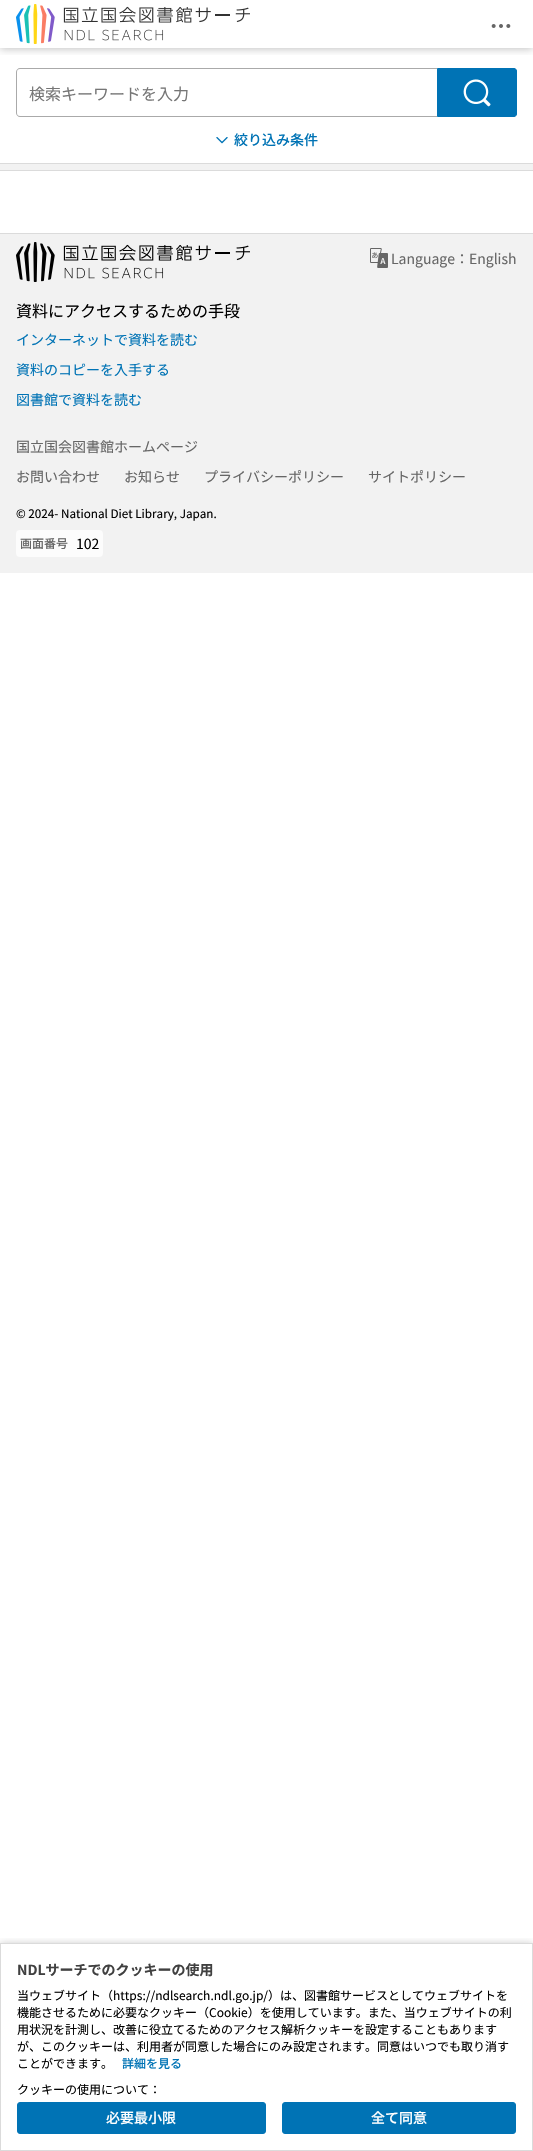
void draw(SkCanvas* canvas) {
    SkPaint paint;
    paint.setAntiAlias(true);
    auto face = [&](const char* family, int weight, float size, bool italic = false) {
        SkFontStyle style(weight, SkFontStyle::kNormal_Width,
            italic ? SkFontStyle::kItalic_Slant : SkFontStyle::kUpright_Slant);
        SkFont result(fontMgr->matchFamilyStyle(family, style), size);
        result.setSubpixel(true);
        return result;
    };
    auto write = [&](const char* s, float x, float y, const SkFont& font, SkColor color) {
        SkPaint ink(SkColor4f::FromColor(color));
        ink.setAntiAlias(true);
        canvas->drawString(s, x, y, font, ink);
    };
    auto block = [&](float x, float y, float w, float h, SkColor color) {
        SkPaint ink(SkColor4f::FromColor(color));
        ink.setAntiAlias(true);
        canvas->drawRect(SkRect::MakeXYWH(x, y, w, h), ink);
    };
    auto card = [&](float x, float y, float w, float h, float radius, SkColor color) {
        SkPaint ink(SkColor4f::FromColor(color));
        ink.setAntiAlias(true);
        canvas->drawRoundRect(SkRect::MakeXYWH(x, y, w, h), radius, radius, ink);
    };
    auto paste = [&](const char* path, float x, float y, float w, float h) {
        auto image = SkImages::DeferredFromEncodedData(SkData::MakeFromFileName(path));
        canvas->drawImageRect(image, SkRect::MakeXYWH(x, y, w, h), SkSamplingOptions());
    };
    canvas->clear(SK_ColorWHITE);
    canvas->save();
    canvas->clipRect(SkRect::MakeXYWH(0, 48, 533, 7));
    paint.setColor(SkColorSetARGB(61, 0, 0, 0));
    paint.setMaskFilter(SkMaskFilter::MakeBlur(kNormal_SkBlurStyle, 4));
    canvas->drawRect(SkRect::MakeXYWH(0, 1, 533, 48), paint);
    paint.setMaskFilter(nullptr);
    canvas->restore();
    paste("pic1.png", 16, 4, 234, 40);
    paste("pic2.png", 491, 24, 20, 4);
    paint.setColor(SkColorSetRGB(170, 170, 170));
    canvas->drawPath(SkPathBuilder(SkPathFillType::kEvenOdd).moveTo(20, 68).lineTo(437, 68).lineTo(437, 117).lineTo(20, 117).cubicTo(18, 117, 16, 115, 16, 113).lineTo(16, 72).cubicTo(16, 70, 18, 68, 20, 68).close().moveTo(20, 69).lineTo(437, 69).lineTo(437, 116).lineTo(20, 116).cubicTo(18, 116, 17, 115, 17, 113).lineTo(17, 72).cubicTo(17, 70, 18, 69, 20, 69).close().detach(), paint);
    auto kFont1 = face("Noto Sans JP", 400, 16);
    write("検索キーワードを入力", 29, 100, kFont1, SkColorSetRGB(118, 118, 118));
    paint.setColor(SkColorSetRGB(0, 115, 181));
    canvas->drawPath(SkPathBuilder().moveTo(437.5f, 68.5f).lineTo(514, 68.5f).cubicTo(515.5f, 68.5f, 516.5f, 69.5f, 516.5f, 71).lineTo(516.5f, 114).cubicTo(516.5f, 115.5f, 515.5f, 116.5f, 514, 116.5f).lineTo(437.5f, 116.5f).close().detach(), paint);
    paint.setStyle(SkPaint::kStroke_Style);
    paint.setStrokeWidth(1);
    canvas->drawPath(SkPathBuilder().moveTo(437.5f, 68.5f).lineTo(514, 68.5f).cubicTo(515.5f, 68.5f, 516.5f, 69.5f, 516.5f, 71).lineTo(516.5f, 114).cubicTo(516.5f, 115.5f, 515.5f, 116.5f, 514, 116.5f).lineTo(437.5f, 116.5f).close().detach(), paint);
    paste("pic3.png", 463, 79, 28, 28);
    paste("pic4.png", 216, 137, 12, 7);
    auto kFont2 = face("Noto Sans JP", 500, 14);
    write("絞り込み条件", 234, 145, kFont2, SkColorSetRGB(0, 115, 181));
    block(0, 164, 533, 6, SkColorSetRGB(242, 242, 242));
    block(0, 163, 533, 1, SkColorSetRGB(219, 219, 219));
    block(0, 170, 533, 1, SkColorSetRGB(219, 219, 219));
    block(0, 234, 533, 339, SkColorSetRGB(242, 242, 242));
    block(0, 233, 533, 1, SkColorSetRGB(219, 219, 219));
    paste("pic5.png", 16, 242, 234, 40);
    paste("pic6.png", 370, 248, 18, 20);
    auto kFont3 = face("Noto Sans JP", 400, 14);
    write("Language：English", 391, 264, kFont3, SkColorSetRGB(102, 102, 102));
    write("資料にアクセスするための手段", 16, 317, kFont1, SK_ColorBLACK);
    write("インターネットで資料を読む", 16, 345, kFont3, SkColorSetRGB(0, 115, 181));
    write("資料のコピーを入手する", 16, 375, kFont3, SkColorSetRGB(0, 115, 181));
    write("図書館で資料を読む", 16, 405, kFont3, SkColorSetRGB(0, 115, 181));
    write("国立国会図書館ホームページ", 16, 452, kFont3, SkColorSetRGB(102, 102, 102));
    write("お問い合わせ", 16, 482, kFont3, SkColorSetRGB(102, 102, 102));
    write("お知らせ", 124, 482, kFont3, SkColorSetRGB(102, 102, 102));
    write("プライバシーポリシー", 204, 482, kFont3, SkColorSetRGB(102, 102, 102));
    write("サイトポリシー", 368, 482, kFont3, SkColorSetRGB(102, 102, 102));
    auto kFont4 = face("Noto Sans JP", 400, 11.7f);
    write("© 2024- National Diet Library, Japan.", 16, 518, kFont4, SK_ColorBLACK);
    card(16, 530, 87, 27, 4, SkColorSetRGB(252, 252, 252));
    auto kFont5 = face("Noto Sans JP", 500, 12);
    write("画面番号", 20, 548, kFont5, SkColorSetRGB(102, 102, 102));
    write("102", 76, 549, kFont3, SK_ColorBLACK);
    canvas->save();
    canvas->clipRect(SkRect::MakeXYWH(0, 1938, 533, 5));
    paint.setStyle(SkPaint::kFill_Style);
    paint.setColor(SkColorSetARGB(61, 0, 0, 0));
    paint.setMaskFilter(SkMaskFilter::MakeBlur(kNormal_SkBlurStyle, 4));
    canvas->drawRect(SkRect::MakeXYWH(0, 1944, 533, 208), paint);
    paint.setMaskFilter(nullptr);
    canvas->restore();
    paint.setStyle(SkPaint::kStroke_Style);
    paint.setColor(SkColorSetRGB(219, 219, 219));
    canvas->drawRect(SkRect::MakeXYWH(0.5f, 1943.5f, 532, 207), paint);
    auto kFont6 = face("Noto Sans JP", 700, 14);
    write("NDLサーチでのクッキーの使用", 17, 1975, kFont6, SkColorSetRGB(64, 64, 64));
    auto kFont7 = face("Noto Sans JP", 400, 12);
    write("当ウェブサイト（https://ndlsearch.ndl.go.jp/）は、図書館サービスとしてウェブサイトを", 17, 2000, kFont7, SK_ColorBLACK);
    write("機能させるために必要なクッキー（Cookie）を使用しています。また、当ウェブサイトの利", 17, 2017, kFont7, SK_ColorBLACK);
    write("用状況を計測し、改善に役立てるためのアクセス解析クッキーを設定することもあります", 17, 2034, kFont7, SK_ColorBLACK);
    write("が、このクッキーは、利用者が同意した場合にのみ設定されます。同意はいつでも取り消す", 17, 2051, kFont7, SK_ColorBLACK);
    write("ことができます。", 17, 2068, kFont7, SK_ColorBLACK);
    write("詳細を見る", 122, 2068, kFont5, SkColorSetRGB(0, 115, 181));
    write("クッキーの使用について：", 17, 2094, kFont7, SK_ColorBLACK);
    paint.setStyle(SkPaint::kFill_Style);
    paint.setColor(SkColorSetRGB(0, 115, 181));
    canvas->drawRoundRect(SkRect::MakeXYWH(17.5f, 2102.5f, 248, 31), 2.5f, 2.5f, paint);
    paint.setStyle(SkPaint::kStroke_Style);
    canvas->drawRoundRect(SkRect::MakeXYWH(17.5f, 2102.5f, 248, 31), 2.5f, 2.5f, paint);
    write("必要最小限", 106, 2123, kFont2, SK_ColorWHITE);
    paint.setStyle(SkPaint::kFill_Style);
    canvas->drawRoundRect(SkRect::MakeXYWH(282.5f, 2102.5f, 233, 31), 2.5f, 2.5f, paint);
    paint.setStyle(SkPaint::kStroke_Style);
    canvas->drawRoundRect(SkRect::MakeXYWH(282.5f, 2102.5f, 233, 31), 2.5f, 2.5f, paint);
    write("全て同意", 371, 2123, kFont2, SK_ColorWHITE);
}
